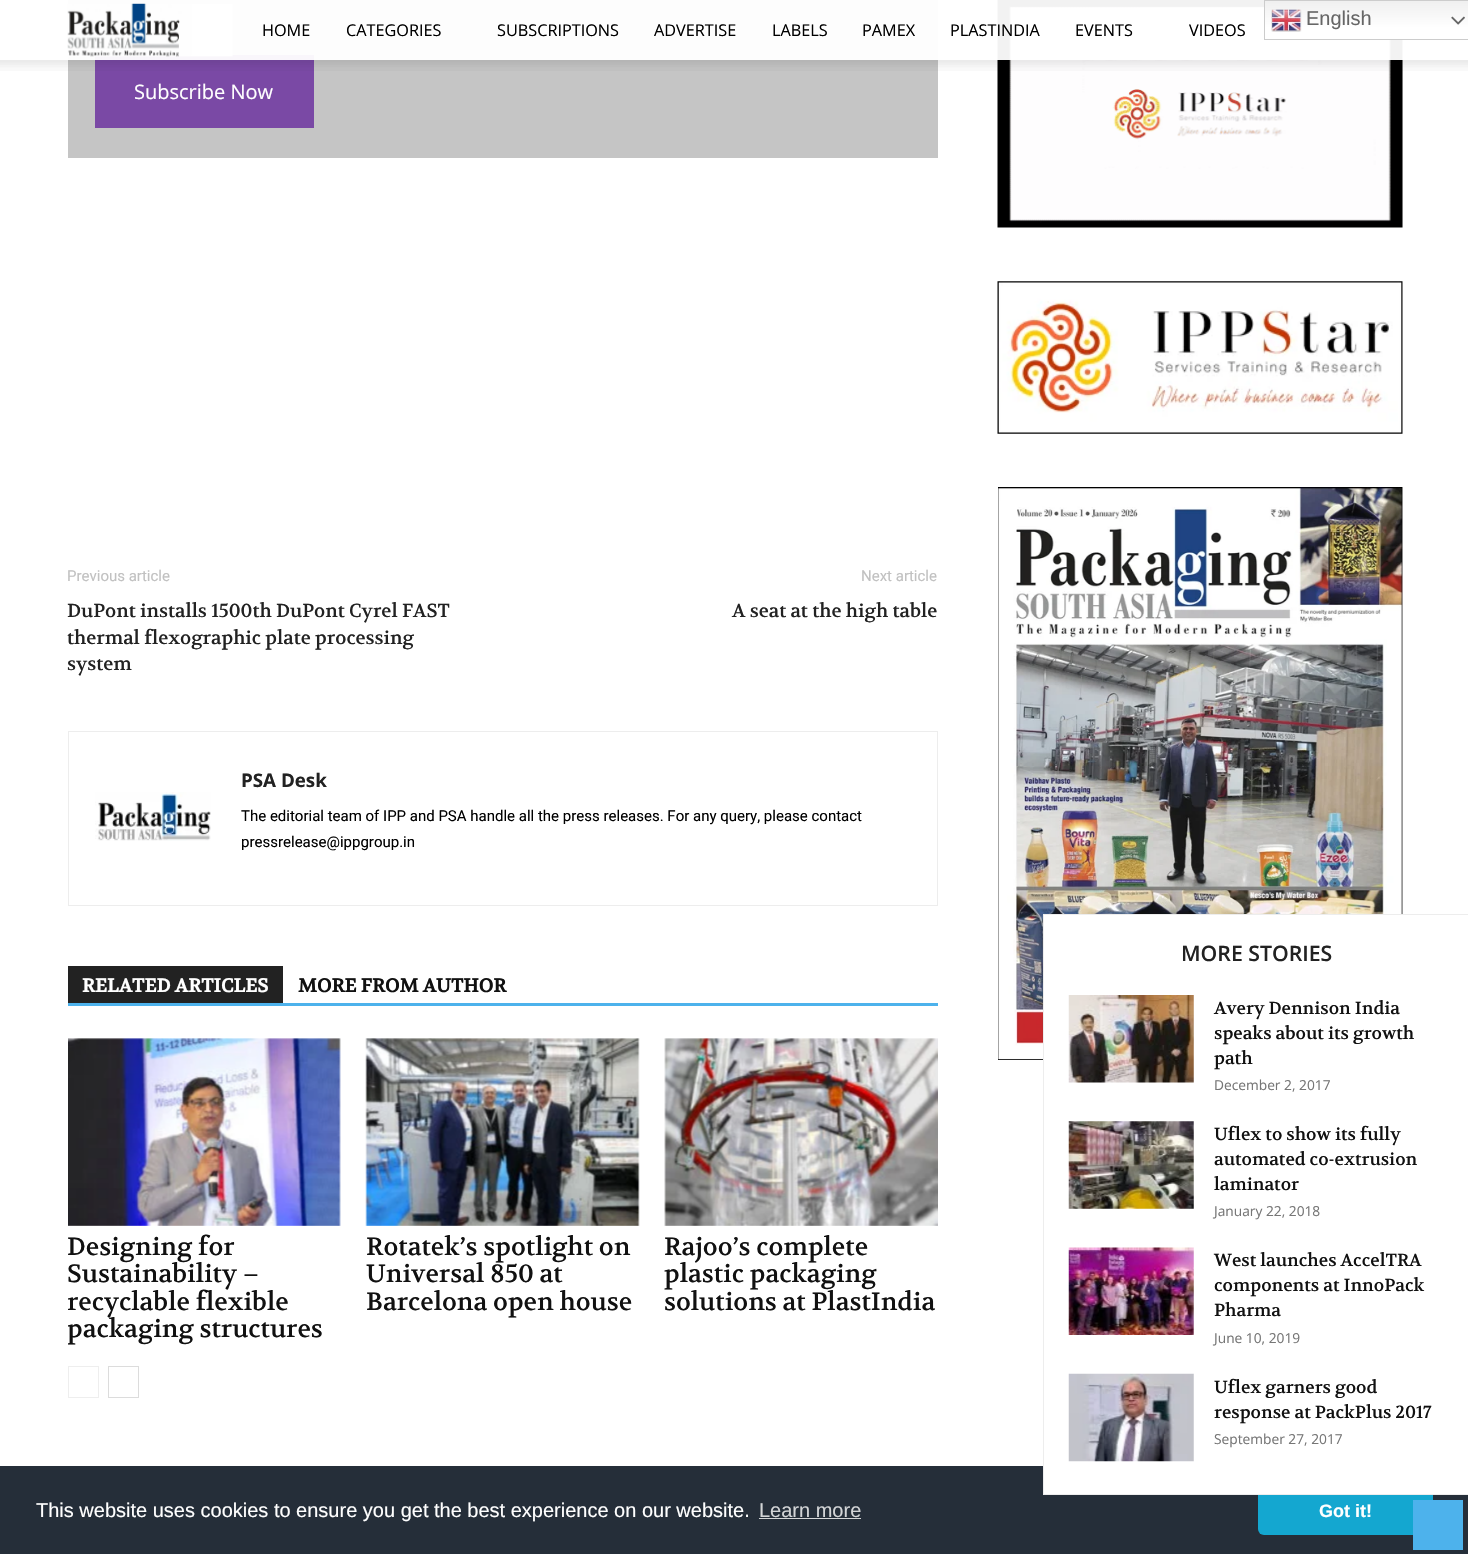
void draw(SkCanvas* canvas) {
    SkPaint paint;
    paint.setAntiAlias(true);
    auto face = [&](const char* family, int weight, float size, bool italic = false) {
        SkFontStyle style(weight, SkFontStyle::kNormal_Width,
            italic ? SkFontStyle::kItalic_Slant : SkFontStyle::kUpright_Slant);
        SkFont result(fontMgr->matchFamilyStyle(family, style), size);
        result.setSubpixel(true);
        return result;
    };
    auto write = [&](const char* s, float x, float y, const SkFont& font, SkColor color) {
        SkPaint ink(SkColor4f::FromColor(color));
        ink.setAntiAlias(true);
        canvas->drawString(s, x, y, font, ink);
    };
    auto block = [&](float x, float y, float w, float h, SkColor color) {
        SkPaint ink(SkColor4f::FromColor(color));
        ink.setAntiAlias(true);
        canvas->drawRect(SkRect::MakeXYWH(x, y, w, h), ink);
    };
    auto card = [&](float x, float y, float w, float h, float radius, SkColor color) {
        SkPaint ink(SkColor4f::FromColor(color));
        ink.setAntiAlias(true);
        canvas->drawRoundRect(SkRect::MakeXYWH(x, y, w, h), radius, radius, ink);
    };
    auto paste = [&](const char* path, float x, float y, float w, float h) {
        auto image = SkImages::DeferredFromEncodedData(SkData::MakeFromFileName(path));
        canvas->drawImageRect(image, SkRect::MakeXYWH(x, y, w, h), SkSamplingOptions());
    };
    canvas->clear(SK_ColorWHITE);
    block(68, 0, 870, 158, SkColorSetRGB(197, 197, 197));
    block(95, 55, 219, 73, SkColorSetRGB(122, 73, 165));
    paste("pic9.png", 997, 0, 406, 228);
    block(68, 0, 1335, 60, SkColorSetARGB(242, 255, 255, 255));
    paste("pic1.png", 67, 3, 166, 54);
    auto kFont1 = face("Open Sans", 400, 16.25f);
    write("HOME", 262, 36, kFont1, SK_ColorBLACK);
    write("CATEGORIES", 346, 36, kFont1, SK_ColorBLACK);
    write("SUBSCRIPTIONS", 497, 36, kFont1, SK_ColorBLACK);
    write("ADVERTISE", 654, 36, kFont1, SK_ColorBLACK);
    write("LABELS", 772, 36, kFont1, SK_ColorBLACK);
    write("PAMEX", 862, 36, kFont1, SK_ColorBLACK);
    write("PLASTINDIA", 950, 36, kFont1, SK_ColorBLACK);
    write("EVENTS", 1075, 36, kFont1, SK_ColorBLACK);
    write("VIDEOS", 1189, 36, kFont1, SK_ColorBLACK);
    {
        const SkColor colors[] = {SkColorSetRGB(239, 239, 239), SK_ColorWHITE};
        const float stops[] = {0, 0.7f};
        const SkPoint ends[] = {{1372, 0}, {1372, 40}};
        paint.setShader(SkGradientShader::MakeLinear(ends, colors, stops, 2, SkTileMode::kClamp));
        paint.setAlpha(255);
    }
    canvas->drawRect(SkRect::MakeXYWH(1265, 1, 203, 38), paint);
    paint.setStyle(SkPaint::kStroke_Style);
    paint.setStrokeWidth(1);
    paint.setShader(nullptr);
    paint.setColor(SkColorSetRGB(204, 204, 204));
    canvas->drawRect(SkRect::MakeXYWH(1264.5f, 0.5f, 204, 39), paint);
    paste("pic2.png", 1271, 9, 31, 23);
    auto kFont2 = face("Liberation Sans", 400, 20);
    write("English", 1306, 25, kFont2, SkColorSetRGB(102, 102, 102));
    paste("pic3.png", 1451, 16, 14, 9);
    paste("pic4.png", 0, 60, 1468, 11);
    auto kFont3 = face("Open Sans", 400, 20);
    write("Subscribe Now", 134, 99, kFont3, SK_ColorWHITE);
    auto kFont4 = face("Roboto", 400, 15);
    write("Previous article", 67, 581, kFont4, SkColorSetRGB(193, 193, 193));
    auto kFont5 = face("Volkhov", 400, 18.75f);
    write("DuPont installs 1500th DuPont Cyrel FAST", 67, 617, kFont5, SkColorSetRGB(34, 34, 34));
    write("thermal flexographic plate processing", 67, 644, kFont5, SkColorSetRGB(34, 34, 34));
    write("system", 67, 670, kFont5, SkColorSetRGB(34, 34, 34));
    write("Next article", 861, 581, kFont4, SkColorSetRGB(193, 193, 193));
    write("A seat at the high table", 732, 617, kFont5, SkColorSetRGB(34, 34, 34));
    paint.setColor(SkColorSetRGB(237, 237, 237));
    canvas->drawRect(SkRect::MakeXYWH(68.5f, 731.5f, 869, 174), paint);
    paste("pic5.png", 95, 792, 116, 49);
    auto kFont6 = face("Open Sans", 700, 18.75f);
    write("PSA Desk", 241, 787, kFont6, SkColorSetRGB(34, 34, 34));
    write("The editorial team of IPP and PSA handle all the press releases. For any query, please contact", 241, 821, kFont4, SK_ColorBLACK);
    write("pressrelease@ippgroup.in", 241, 847, kFont4, SK_ColorBLACK);
    block(68, 1003, 870, 3, SkColorSetRGB(77, 178, 236));
    block(68, 966, 215, 37, SkColorSetRGB(34, 34, 34));
    auto kFont7 = face("Volkhov", 700, 18.75f);
    write("RELATED ARTICLES", 82, 992, kFont7, SK_ColorWHITE);
    write("MORE FROM AUTHOR", 298, 992, kFont7, SkColorSetRGB(17, 17, 17));
    paste("pic6.png", 68, 1038, 273, 188);
    auto kFont8 = face("Volkhov", 400, 25);
    write("Designing for", 67, 1255, kFont8, SkColorSetRGB(17, 17, 17));
    write("Sustainability –", 67, 1282, kFont8, SkColorSetRGB(17, 17, 17));
    canvas->save();
    canvas->clipRect(SkRect::MakeXYWH(68, 966, 870, 432));
    write("recyclable flexible", 67, 1310, kFont8, SkColorSetRGB(17, 17, 17));
    write("packaging structures", 67, 1337, kFont8, SkColorSetRGB(17, 17, 17));
    canvas->restore();
    paste("pic7.png", 365, 1038, 275, 188);
    write("Rotatek’s spotlight on", 366, 1255, kFont8, SkColorSetRGB(17, 17, 17));
    write("Universal 850 at", 366, 1282, kFont8, SkColorSetRGB(17, 17, 17));
    write("Barcelona open house", 366, 1310, kFont8, SkColorSetRGB(17, 17, 17));
    paste("pic8.png", 664, 1038, 274, 188);
    write("Rajoo’s complete", 664, 1255, kFont8, SkColorSetRGB(17, 17, 17));
    write("plastic packaging", 664, 1282, kFont8, SkColorSetRGB(17, 17, 17));
    write("solutions at PlastIndia", 664, 1310, kFont8, SkColorSetRGB(17, 17, 17));
    paint.setColor(SkColorSetRGB(238, 238, 238));
    canvas->drawRect(SkRect::MakeXYWH(68.5f, 1366.5f, 30, 31), paint);
    paint.setColor(SkColorSetRGB(220, 220, 220));
    canvas->drawRect(SkRect::MakeXYWH(108.5f, 1366.5f, 30, 31), paint);
    paste("pic10.png", 997, 281, 406, 153);
    paste("pic11.png", 998, 487, 405, 573);
    block(0, 1466, 1468, 88, SkColorSetRGB(37, 46, 57));
    card(1258, 1486, 175, 49, 6, SkColorSetRGB(20, 167, 208));
    block(1044, 915, 424, 579, SK_ColorWHITE);
    block(1043, 914, 425, 1, SkColorSetRGB(237, 237, 237));
    block(1043, 1494, 425, 1, SkColorSetRGB(237, 237, 237));
    block(1043, 914, 1, 581, SkColorSetRGB(237, 237, 237));
    auto kFont9 = face("Open Sans", 600, 21.25f);
    write("MORE STORIES", 1181, 961, kFont9, SkColorSetRGB(34, 34, 34));
    paste("pic12.png", 1068, 995, 126, 88);
    auto kFont10 = face("Volkhov", 400, 17.5f);
    write("Avery Dennison India", 1214, 1014, kFont10, SkColorSetRGB(17, 17, 17));
    write("speaks about its growth", 1214, 1039, kFont10, SkColorSetRGB(17, 17, 17));
    write("path", 1214, 1064, kFont10, SkColorSetRGB(17, 17, 17));
    auto kFont11 = face("Open Sans", 400, 13.75f);
    write("December 2, 2017", 1214, 1090, kFont11, SkColorSetRGB(118, 118, 118));
    paste("pic13.png", 1068, 1121, 126, 88);
    write("Uflex to show its fully", 1214, 1140, kFont10, SkColorSetRGB(17, 17, 17));
    write("automated co-extrusion", 1214, 1165, kFont10, SkColorSetRGB(17, 17, 17));
    write("laminator", 1214, 1190, kFont10, SkColorSetRGB(17, 17, 17));
    write("January 22, 2018", 1214, 1216, kFont11, SkColorSetRGB(118, 118, 118));
    paste("pic14.png", 1068, 1247, 126, 88);
    write("West launches AccelTRA", 1214, 1266, kFont10, SkColorSetRGB(17, 17, 17));
    write("components at InnoPack", 1214, 1291, kFont10, SkColorSetRGB(17, 17, 17));
    write("Pharma", 1214, 1316, kFont10, SkColorSetRGB(17, 17, 17));
    write("June 10, 2019", 1214, 1343, kFont11, SkColorSetRGB(118, 118, 118));
    paste("pic15.png", 1068, 1373, 126, 89);
    write("Uflex garners good", 1214, 1393, kFont10, SkColorSetRGB(17, 17, 17));
    write("response at PackPlus 2017", 1214, 1418, kFont10, SkColorSetRGB(17, 17, 17));
    write("September 27, 2017", 1214, 1444, kFont11, SkColorSetRGB(118, 118, 118));
    write("This website uses cookies to ensure you get the best experience on our website.", 36, 1517, kFont2, SK_ColorWHITE);
    write("Learn more", 759, 1517, kFont2, SkColorSetRGB(211, 213, 215));
    block(759, 1518, 102, 1, SkColorSetRGB(211, 213, 215));
    auto kFont12 = face("Liberation Sans", 700, 18);
    write("Got it!", 1319, 1517, kFont12, SK_ColorWHITE);
    block(1413, 1500, 50, 50, SkColorSetRGB(77, 178, 236));
}
